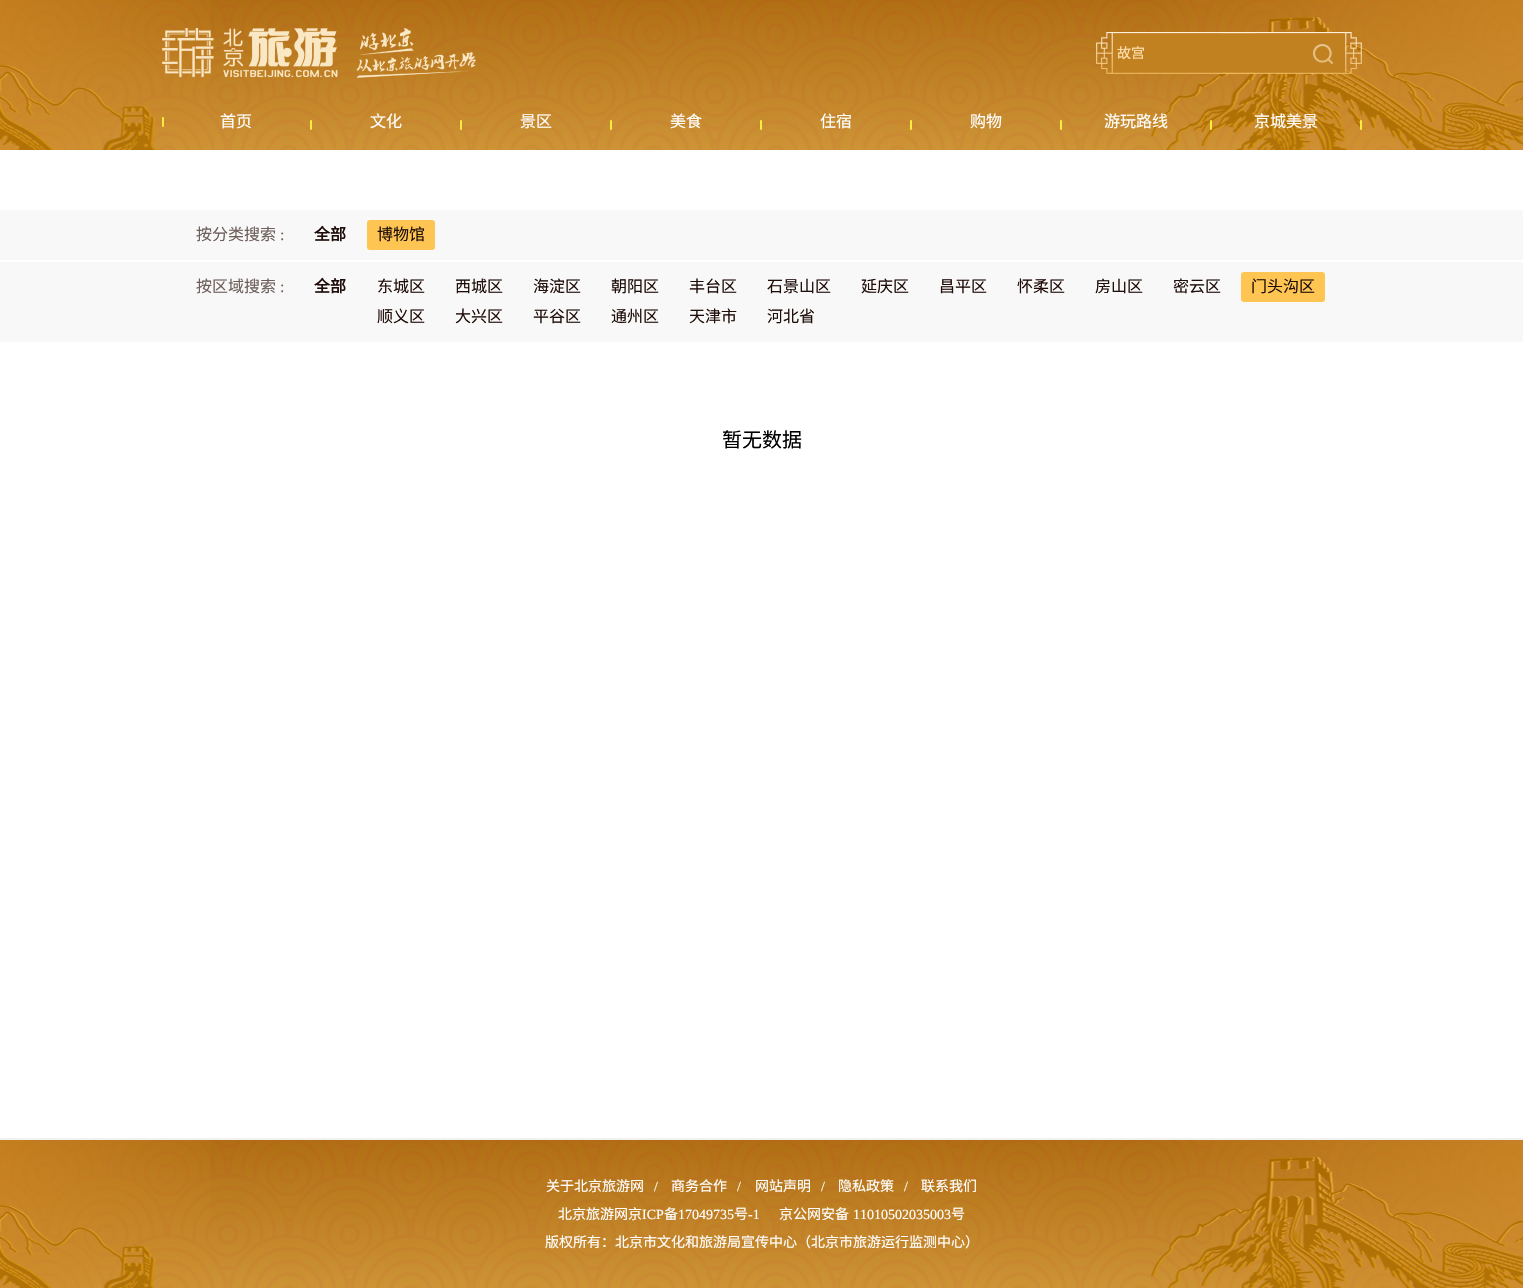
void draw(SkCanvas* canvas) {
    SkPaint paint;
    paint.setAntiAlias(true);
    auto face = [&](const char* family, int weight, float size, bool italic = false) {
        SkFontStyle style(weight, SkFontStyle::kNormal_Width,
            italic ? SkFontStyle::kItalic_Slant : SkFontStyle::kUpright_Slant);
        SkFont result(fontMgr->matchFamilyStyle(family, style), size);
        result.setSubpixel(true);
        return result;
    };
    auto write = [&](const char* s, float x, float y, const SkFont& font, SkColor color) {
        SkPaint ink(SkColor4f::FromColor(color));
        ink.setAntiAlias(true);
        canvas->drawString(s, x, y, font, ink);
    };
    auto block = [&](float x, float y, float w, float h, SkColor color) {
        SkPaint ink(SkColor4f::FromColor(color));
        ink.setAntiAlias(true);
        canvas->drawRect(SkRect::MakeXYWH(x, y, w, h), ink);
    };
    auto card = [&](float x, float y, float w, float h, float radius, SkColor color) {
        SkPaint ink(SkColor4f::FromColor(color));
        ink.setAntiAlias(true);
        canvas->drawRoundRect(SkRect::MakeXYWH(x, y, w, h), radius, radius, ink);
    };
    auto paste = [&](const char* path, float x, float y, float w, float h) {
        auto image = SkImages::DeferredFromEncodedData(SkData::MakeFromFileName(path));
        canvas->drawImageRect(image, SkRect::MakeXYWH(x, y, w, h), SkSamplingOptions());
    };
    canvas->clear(SK_ColorWHITE);
    paste("pic1.png", 0, 0, 1523, 150);
    paste("pic2.png", 162, 28, 314, 50);
    paste("pic3.png", 1096, 32, 266, 42);
    auto kFont1 = face("Noto Sans CJK SC", 400, 14);
    write("故宫", 1117, 58, kFont1, SkColorSetRGB(255, 224, 176));
    paste("pic4.png", 1313, 44, 20, 20);
    card(162, 117, 2, 10, 1, SkColorSetRGB(255, 236, 67));
    auto kFont2 = face("Noto Sans CJK SC", 400, 16);
    write("首页", 220, 127, kFont2, SK_ColorWHITE);
    card(310, 120, 2, 10, 1, SkColorSetRGB(255, 236, 67));
    write("文化", 370, 127, kFont2, SK_ColorWHITE);
    card(460, 120, 2, 10, 1, SkColorSetRGB(255, 236, 67));
    write("景区", 520, 127, kFont2, SK_ColorWHITE);
    card(610, 120, 2, 10, 1, SkColorSetRGB(255, 236, 67));
    write("美食", 670, 127, kFont2, SK_ColorWHITE);
    card(760, 120, 2, 10, 1, SkColorSetRGB(255, 236, 67));
    write("住宿", 820, 127, kFont2, SK_ColorWHITE);
    card(910, 120, 2, 10, 1, SkColorSetRGB(255, 236, 67));
    write("购物", 970, 127, kFont2, SK_ColorWHITE);
    card(1060, 120, 2, 10, 1, SkColorSetRGB(255, 236, 67));
    write("游玩路线", 1104, 127, kFont2, SK_ColorWHITE);
    card(1210, 120, 2, 10, 1, SkColorSetRGB(255, 236, 67));
    write("京城美景", 1254, 127, kFont2, SK_ColorWHITE);
    card(1360, 120, 2, 10, 1, SkColorSetRGB(255, 236, 67));
    block(0, 1138, 1523, 2, SkColorSetRGB(241, 241, 241));
    block(0, 210, 1523, 50, SkColorSetRGB(248, 248, 248));
    write("按分类搜索", 196, 240, kFont2, SkColorSetRGB(110, 95, 92));
    auto kFont3 = face("Liberation Serif", 400, 16);
    write(":", 280, 240, kFont3, SkColorSetRGB(110, 95, 92));
    auto kFont4 = face("Noto Sans CJK SC", 700, 16);
    write("全部", 314, 240, kFont4, SkColorSetRGB(31, 13, 9));
    card(367, 220, 68, 30, 3, SkColorSetRGB(255, 197, 83));
    write("博物馆", 377, 240, kFont2, SkColorSetRGB(31, 13, 9));
    block(0, 262, 1523, 80, SkColorSetRGB(248, 248, 248));
    write("按区域搜索", 196, 292, kFont2, SkColorSetRGB(110, 95, 92));
    write(":", 280, 292, kFont3, SkColorSetRGB(110, 95, 92));
    write("全部", 314, 292, kFont4, SkColorSetRGB(31, 13, 9));
    write("东城区", 377, 292, kFont2, SkColorSetRGB(31, 13, 9));
    write("西城区", 455, 292, kFont2, SkColorSetRGB(31, 13, 9));
    write("海淀区", 533, 292, kFont2, SkColorSetRGB(31, 13, 9));
    write("朝阳区", 611, 292, kFont2, SkColorSetRGB(31, 13, 9));
    write("丰台区", 689, 292, kFont2, SkColorSetRGB(31, 13, 9));
    write("石景山区", 767, 292, kFont2, SkColorSetRGB(31, 13, 9));
    write("延庆区", 861, 292, kFont2, SkColorSetRGB(31, 13, 9));
    write("昌平区", 939, 292, kFont2, SkColorSetRGB(31, 13, 9));
    write("怀柔区", 1017, 292, kFont2, SkColorSetRGB(31, 13, 9));
    write("房山区", 1095, 292, kFont2, SkColorSetRGB(31, 13, 9));
    write("密云区", 1173, 292, kFont2, SkColorSetRGB(31, 13, 9));
    card(1241, 272, 84, 30, 3, SkColorSetRGB(255, 197, 83));
    write("门头沟区", 1251, 292, kFont2, SkColorSetRGB(31, 13, 9));
    write("顺义区", 377, 322, kFont2, SkColorSetRGB(31, 13, 9));
    write("大兴区", 455, 322, kFont2, SkColorSetRGB(31, 13, 9));
    write("平谷区", 533, 322, kFont2, SkColorSetRGB(31, 13, 9));
    write("通州区", 611, 322, kFont2, SkColorSetRGB(31, 13, 9));
    write("天津市", 689, 322, kFont2, SkColorSetRGB(31, 13, 9));
    write("河北省", 767, 322, kFont2, SkColorSetRGB(31, 13, 9));
    auto kFont5 = face("Noto Sans CJK SC", 400, 20);
    write("暂无数据", 722, 447, kFont5, SK_ColorBLACK);
    paste("pic5.png", 0, 1140, 1523, 148);
    write("关于北京旅游网", 546, 1191, kFont1, SK_ColorWHITE);
    auto kFont6 = face("Liberation Serif", 400, 14);
    write("/", 654, 1191, kFont6, SK_ColorWHITE);
    write("商务合作", 671, 1191, kFont1, SK_ColorWHITE);
    write("/", 737, 1191, kFont6, SK_ColorWHITE);
    write("网站声明", 755, 1191, kFont1, SK_ColorWHITE);
    write("/", 821, 1191, kFont6, SK_ColorWHITE);
    write("隐私政策", 838, 1191, kFont1, SK_ColorWHITE);
    write("/", 904, 1191, kFont6, SK_ColorWHITE);
    write("联系我们", 921, 1191, kFont1, SK_ColorWHITE);
    write("北京旅游网京", 558, 1219, kFont1, SK_ColorWHITE);
    write("ICP", 642, 1219, kFont6, SK_ColorWHITE);
    write("备", 664, 1219, kFont1, SK_ColorWHITE);
    write("17049735", 678, 1219, kFont6, SK_ColorWHITE);
    write("号", 734, 1219, kFont1, SK_ColorWHITE);
    write("-1", 748, 1219, kFont6, SK_ColorWHITE);
    write("京公网安备", 779, 1219, kFont1, SK_ColorWHITE);
    write("11010502035003", 853, 1219, kFont6, SK_ColorWHITE);
    write("号", 951, 1219, kFont1, SK_ColorWHITE);
    write("版权所有：北京市文化和旅游局宣传中心（北京市旅游运行监测中心）", 545, 1247, kFont1, SK_ColorWHITE);
}
